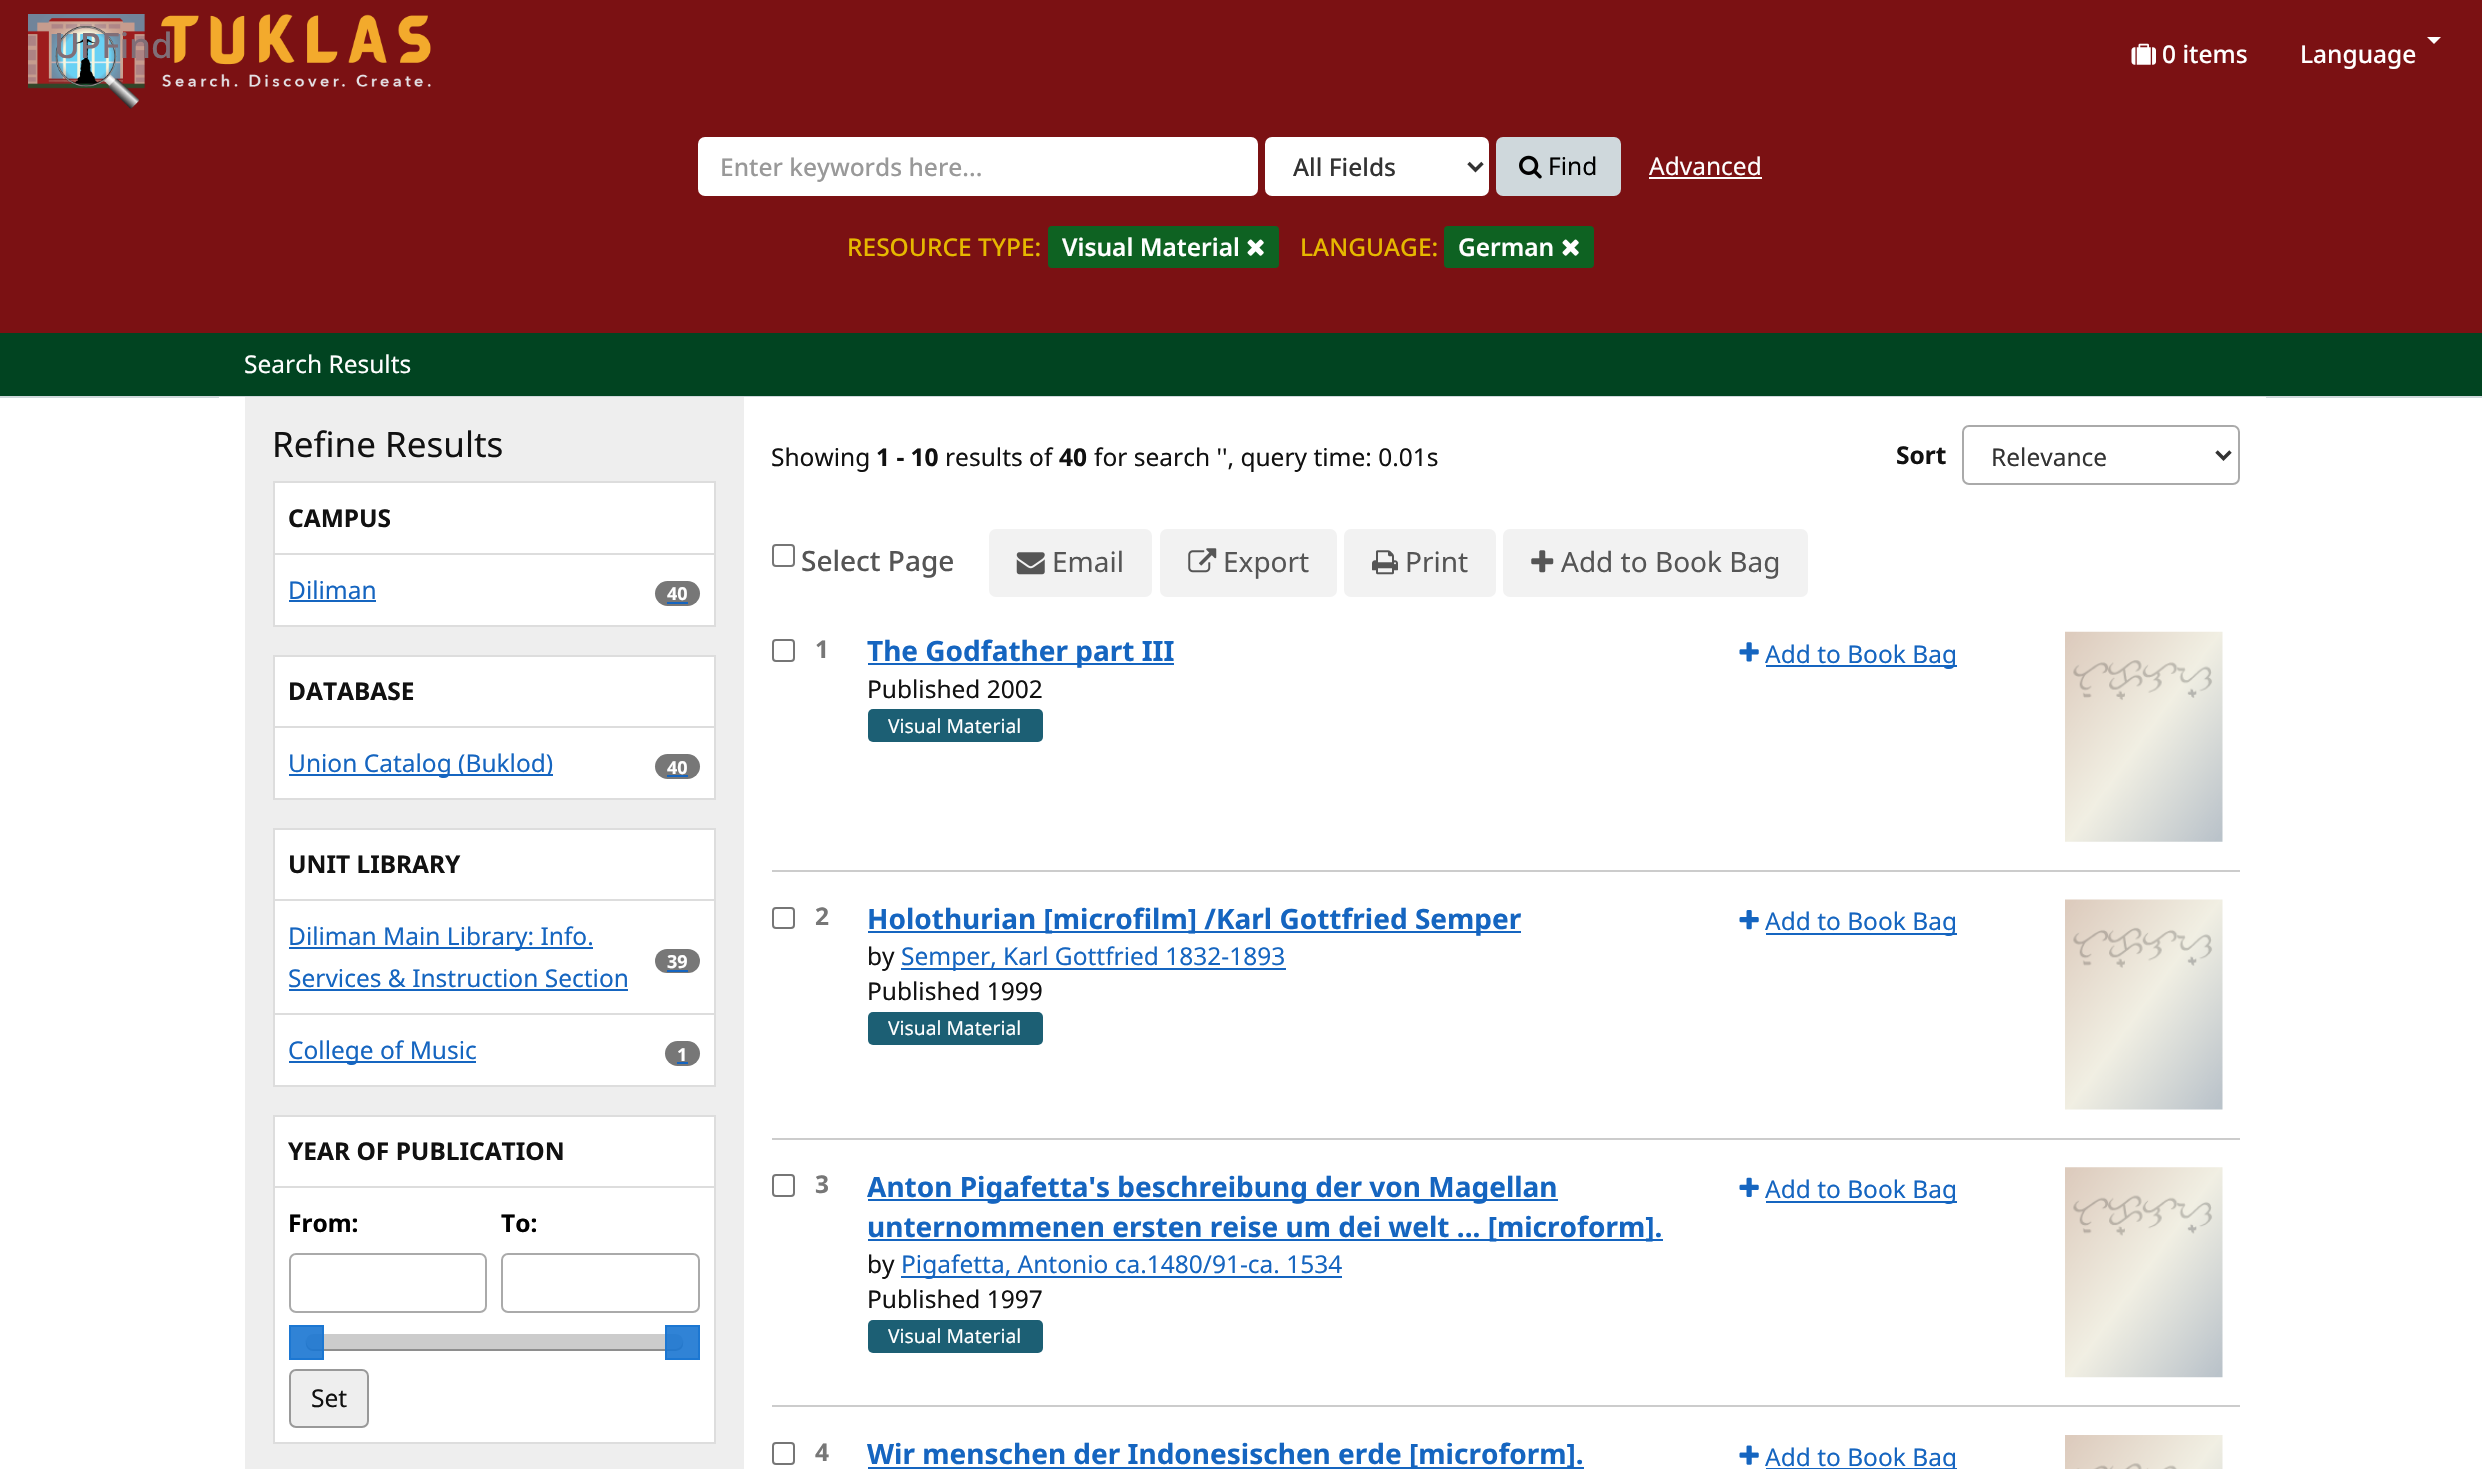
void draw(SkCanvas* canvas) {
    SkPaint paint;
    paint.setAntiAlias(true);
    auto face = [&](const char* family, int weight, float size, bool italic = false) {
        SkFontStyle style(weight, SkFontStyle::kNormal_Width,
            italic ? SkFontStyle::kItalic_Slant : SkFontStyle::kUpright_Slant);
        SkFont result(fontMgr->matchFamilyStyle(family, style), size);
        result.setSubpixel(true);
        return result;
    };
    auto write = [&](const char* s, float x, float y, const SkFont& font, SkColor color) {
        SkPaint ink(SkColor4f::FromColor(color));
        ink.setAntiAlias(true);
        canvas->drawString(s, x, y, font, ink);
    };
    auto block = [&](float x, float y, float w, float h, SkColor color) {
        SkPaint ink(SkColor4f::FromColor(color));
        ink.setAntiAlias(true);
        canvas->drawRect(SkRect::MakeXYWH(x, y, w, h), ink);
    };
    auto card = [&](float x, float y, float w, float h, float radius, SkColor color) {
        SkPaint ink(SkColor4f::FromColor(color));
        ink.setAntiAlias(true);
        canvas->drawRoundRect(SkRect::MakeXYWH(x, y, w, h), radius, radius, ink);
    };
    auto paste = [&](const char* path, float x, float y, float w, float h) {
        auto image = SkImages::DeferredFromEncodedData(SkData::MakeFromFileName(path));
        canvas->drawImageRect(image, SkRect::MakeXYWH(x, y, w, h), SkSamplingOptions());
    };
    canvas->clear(SK_ColorWHITE);
    block(0, 0, 2482, 333, SkColorSetRGB(123, 17, 19));
    paste("pic1.png", 28, 14, 403, 95);
    auto kFont1 = face("Noto Sans", 500, 35);
    write("UPFind", 54, 58, kFont1, SkColorSetRGB(128, 110, 119));
    paste("pic2.png", 2131, 43, 25, 22);
    auto kFont2 = face("Noto Sans", 500, 24.5f);
    write("0 items", 2162, 63, kFont2, SK_ColorWHITE);
    paint.setColor(SK_ColorWHITE);
    canvas->drawPath(SkPathBuilder().moveTo(2427, 37).lineTo(2441, 37).lineTo(2434, 44).close().detach(), paint);
    write("Language", 2300, 63, kFont2, SK_ColorWHITE);
    card(698, 137, 560, 59, 7, SK_ColorWHITE);
    write("Enter keywords here...", 720, 176, kFont2, SkColorSetRGB(153, 153, 153));
    card(1265, 137, 224, 59, 7, SK_ColorWHITE);
    paint.setStyle(SkPaint::kStroke_Style);
    paint.setStrokeWidth(3.5f);
    paint.setColor(SkColorSetRGB(51, 51, 51));
    canvas->drawPath(SkPathBuilder().moveTo(1468.5f, 163).lineTo(1475.5f, 170).lineTo(1482.5f, 163).detach(), paint);
    write("All Fields", 1293, 176, kFont2, SkColorSetRGB(51, 51, 51));
    card(1496, 137, 125, 59, 7, SkColorSetRGB(207, 216, 220));
    paste("pic3.png", 1519, 155, 23, 24);
    auto kFont3 = face("Noto Sans", 400, 24.5f);
    write("Find", 1548, 175, kFont3, SK_ColorBLACK);
    write("Advanced", 1649, 175, kFont3, SK_ColorWHITE);
    block(1649, 177, 113, 2, SK_ColorWHITE);
    write("RESOURCE TYPE:", 847, 256, kFont2, SkColorSetRGB(230, 184, 0));
    card(1048, 226, 231, 42, 4, SkColorSetRGB(14, 98, 34));
    auto kFont4 = face("Noto Sans", 600, 24.5f);
    write("Visual Material", 1062, 256, kFont4, SK_ColorWHITE);
    paste("pic4.png", 1247, 239, 17, 17);
    write("LANGUAGE:", 1300, 256, kFont2, SkColorSetRGB(230, 184, 0));
    card(1444, 226, 150, 42, 4, SkColorSetRGB(14, 98, 34));
    write("German", 1458, 256, kFont4, SK_ColorWHITE);
    paste("pic4.png", 1562, 239, 17, 17);
    block(0, 333, 2482, 63, SkColorSetRGB(1, 68, 33));
    block(0, 396, 2482, 2, SkColorSetRGB(207, 216, 220));
    write("Search Results", 244, 373, kFont3, SK_ColorWHITE);
    block(219, 397, 2047, 1, SK_ColorWHITE);
    block(245, 397, 499, 1072, SkColorSetRGB(238, 238, 238));
    auto kFont5 = face("Noto Sans", 400, 35);
    write("Refine Results", 272, 457, kFont5, SkColorSetRGB(17, 17, 17));
    block(275, 483, 439, 142, SK_ColorWHITE);
    paint.setStrokeWidth(2);
    paint.setColor(SkColorSetRGB(221, 221, 221));
    canvas->drawRect(SkRect::MakeXYWH(274, 482, 441, 72), paint);
    auto kFont6 = face("Noto Sans", 700, 24.5f);
    write("CAMPUS", 288, 527, kFont6, SkColorSetRGB(17, 17, 17));
    block(714, 555, 2, 72, SkColorSetRGB(221, 221, 221));
    block(273, 555, 2, 72, SkColorSetRGB(221, 221, 221));
    block(275, 625, 439, 2, SkColorSetRGB(221, 221, 221));
    write("Diliman", 288, 599, kFont3, SkColorSetRGB(21, 101, 192));
    block(289, 600, 87, 2, SkColorSetRGB(21, 101, 192));
    card(655, 581, 45, 25, 12.5f, SkColorSetRGB(119, 119, 119));
    auto kFont7 = face("Noto Sans", 700, 18);
    write("40", 667, 600, kFont7, SK_ColorWHITE);
    block(667, 602, 21, 2, SkColorSetRGB(21, 101, 192));
    block(275, 657, 439, 141, SK_ColorWHITE);
    canvas->drawRect(SkRect::MakeXYWH(274, 656, 441, 71), paint);
    write("DATABASE", 288, 700, kFont6, SkColorSetRGB(17, 17, 17));
    block(714, 728, 2, 72, SkColorSetRGB(221, 221, 221));
    block(273, 728, 2, 72, SkColorSetRGB(221, 221, 221));
    block(275, 798, 439, 2, SkColorSetRGB(221, 221, 221));
    block(289, 774, 264, 2, SkColorSetRGB(21, 101, 192));
    write("Union Catalog (Buklod)", 288, 772, kFont3, SkColorSetRGB(21, 101, 192));
    card(655, 754, 45, 25, 12.5f, SkColorSetRGB(119, 119, 119));
    write("40", 667, 774, kFont7, SK_ColorWHITE);
    block(667, 775, 21, 2, SkColorSetRGB(21, 101, 192));
    block(275, 830, 439, 255, SK_ColorWHITE);
    canvas->drawRect(SkRect::MakeXYWH(274, 829, 441, 71), paint);
    write("UNIT LIBRARY", 288, 873, kFont6, SkColorSetRGB(17, 17, 17));
    block(714, 901, 2, 186, SkColorSetRGB(221, 221, 221));
    block(273, 901, 2, 186, SkColorSetRGB(221, 221, 221));
    block(275, 1013, 439, 2, SkColorSetRGB(221, 221, 221));
    block(289, 947, 304, 2, SkColorSetRGB(21, 101, 192));
    write("Diliman Main Library: Info.", 288, 945, kFont3, SkColorSetRGB(21, 101, 192));
    write("Services & Instruction Section", 288, 987, kFont3, SkColorSetRGB(21, 101, 192));
    block(289, 989, 339, 2, SkColorSetRGB(21, 101, 192));
    card(655, 949, 45, 24, 12, SkColorSetRGB(119, 119, 119));
    write("39", 667, 968, kFont7, SK_ColorWHITE);
    block(667, 970, 21, 2, SkColorSetRGB(21, 101, 192));
    block(275, 1085, 439, 2, SkColorSetRGB(221, 221, 221));
    block(289, 1061, 187, 2, SkColorSetRGB(21, 101, 192));
    write("College of Music", 288, 1059, kFont3, SkColorSetRGB(21, 101, 192));
    card(665, 1041, 35, 25, 12.5f, SkColorSetRGB(119, 119, 119));
    write("1", 677, 1061, kFont7, SK_ColorWHITE);
    block(677, 1062, 11, 2, SkColorSetRGB(21, 101, 192));
    block(275, 1117, 439, 325, SK_ColorWHITE);
    canvas->drawRect(SkRect::MakeXYWH(274, 1116, 441, 71), paint);
    write("YEAR OF PUBLICATION", 288, 1160, kFont6, SkColorSetRGB(17, 17, 17));
    block(714, 1188, 2, 256, SkColorSetRGB(221, 221, 221));
    block(273, 1188, 2, 256, SkColorSetRGB(221, 221, 221));
    block(275, 1442, 439, 2, SkColorSetRGB(221, 221, 221));
    write("From:", 288, 1232, kFont6, SK_ColorBLACK);
    paint.setColor(SkColorSetRGB(170, 170, 170));
    canvas->drawRoundRect(SkRect::MakeXYWH(290, 1254, 196, 58), 6, 6, paint);
    write("To:", 501, 1232, kFont6, SK_ColorBLACK);
    canvas->drawRoundRect(SkRect::MakeXYWH(502, 1254, 197, 58), 6, 6, paint);
    card(306, 1334, 377, 17, 7, SkColorSetRGB(204, 204, 204));
    paint.setStyle(SkPaint::kFill_Style);
    paint.setColor(SkColorSetARGB(77, 0, 0, 0));
    canvas->drawPath(SkPathBuilder().moveTo(306, 1339).cubicTo(305, 1342, 306, 1347, 308, 1349).cubicTo(309, 1350, 311, 1351, 313, 1351).lineTo(676, 1351).lineTo(679, 1350).cubicTo(683, 1349, 684, 1343, 683, 1339).cubicTo(683, 1342, 682, 1346, 679, 1348).lineTo(676, 1349).lineTo(313, 1349).cubicTo(308, 1349, 306, 1343, 306, 1339).close().detach(), paint);
    block(289, 1325, 35, 35, SkColorSetARGB(230, 25, 118, 210));
    paint.setStyle(SkPaint::kStroke_Style);
    paint.setColor(SkColorSetARGB(230, 25, 118, 210));
    canvas->drawRect(SkRect::MakeXYWH(290, 1326, 33, 33), paint);
    block(665, 1325, 35, 35, SkColorSetARGB(230, 25, 118, 210));
    canvas->drawRect(SkRect::MakeXYWH(666, 1326, 33, 33), paint);
    paint.setStyle(SkPaint::kFill_Style);
    paint.setColor(SkColorSetRGB(238, 238, 238));
    canvas->drawRoundRect(SkRect::MakeXYWH(290, 1370, 78, 57), 6, 6, paint);
    paint.setStyle(SkPaint::kStroke_Style);
    paint.setColor(SkColorSetRGB(153, 153, 153));
    canvas->drawRoundRect(SkRect::MakeXYWH(290, 1370, 78, 57), 6, 6, paint);
    write("Set", 311, 1407, kFont3, SkColorSetRGB(17, 17, 17));
    write("Showing", 771, 466, kFont3, SkColorSetRGB(17, 17, 17));
    write("1 - 10", 876, 466, kFont6, SkColorSetRGB(17, 17, 17));
    write("results of", 945, 466, kFont3, SkColorSetRGB(17, 17, 17));
    write("40", 1059, 466, kFont6, SkColorSetRGB(17, 17, 17));
    write("for search '', query time: 0.01s", 1094, 466, kFont3, SkColorSetRGB(17, 17, 17));
    write("Sort", 1896, 464, kFont6, SkColorSetRGB(17, 17, 17));
    paint.setColor(SkColorSetRGB(170, 170, 170));
    canvas->drawRoundRect(SkRect::MakeXYWH(1963, 426, 276, 58), 6, 6, paint);
    paint.setStrokeWidth(3.5f);
    paint.setColor(SkColorSetRGB(51, 51, 51));
    canvas->drawPath(SkPathBuilder().moveTo(2216.5f, 451.5f).lineTo(2223.5f, 458.5f).lineTo(2230.5f, 451.5f).detach(), paint);
    write("Relevance", 1991, 466, kFont3, SkColorSetRGB(51, 51, 51));
    paint.setStrokeWidth(2);
    paint.setColor(SkColorSetRGB(118, 118, 118));
    canvas->drawRoundRect(SkRect::MakeXYWH(773, 545, 21, 21), 3, 3, paint);
    auto kFont8 = face("Noto Sans", 500, 28);
    write("Select Page", 801, 571, kFont8, SkColorSetRGB(85, 85, 85));
    card(989, 529, 163, 68, 7, SkColorSetRGB(242, 242, 242));
    paste("pic5.png", 1016, 552, 29, 23);
    auto kFont9 = face("Noto Sans", 400, 28);
    write("Email", 1052, 572, kFont9, SkColorSetRGB(85, 85, 85));
    card(1160, 529, 177, 68, 7, SkColorSetRGB(242, 242, 242));
    paste("pic6.png", 1188, 548, 29, 25);
    write("Export", 1223, 572, kFont9, SkColorSetRGB(85, 85, 85));
    card(1344, 529, 152, 68, 7, SkColorSetRGB(242, 242, 242));
    paste("pic7.png", 1372, 550, 26, 25);
    write("Print", 1405, 572, kFont9, SkColorSetRGB(85, 85, 85));
    card(1503, 529, 305, 68, 7, SkColorSetRGB(242, 242, 242));
    paste("pic8.png", 1531, 550, 23, 23);
    write("Add to Book Bag", 1561, 572, kFont9, SkColorSetRGB(85, 85, 85));
    block(772, 870, 1468, 2, SkColorSetRGB(204, 204, 204));
    canvas->drawRoundRect(SkRect::MakeXYWH(773, 640, 21, 21), 3, 3, paint);
    write("1", 815, 658, kFont6, SkColorSetRGB(119, 119, 119));
    block(868, 663, 306, 2, SkColorSetRGB(21, 101, 192));
    auto kFont10 = face("Noto Sans", 700, 28);
    write("The Godfather part III", 867, 661, kFont10, SkColorSetRGB(21, 101, 192));
    write("Published 2002", 867, 698, kFont3, SkColorSetRGB(17, 17, 17));
    card(868, 709, 175, 33, 5, SkColorSetRGB(28, 95, 116));
    auto kFont11 = face("Noto Sans", 400, 19.25f);
    write("Visual Material", 888, 733, kFont11, SK_ColorWHITE);
    paste("pic9.png", 1739, 642, 20, 20);
    block(1766, 665, 191, 2, SkColorSetRGB(21, 101, 192));
    write("Add to Book Bag", 1765, 663, kFont3, SkColorSetRGB(21, 101, 192));
    paste("pic10.png", 2065, 631, 158, 211);
    block(772, 1138, 1468, 2, SkColorSetRGB(204, 204, 204));
    canvas->drawRoundRect(SkRect::MakeXYWH(773, 908, 21, 20), 3, 3, paint);
    write("2", 815, 925, kFont6, SkColorSetRGB(119, 119, 119));
    block(868, 931, 653, 2, SkColorSetRGB(21, 101, 192));
    write("Holothurian [microfilm] /Karl Gottfried Semper", 867, 929, kFont10, SkColorSetRGB(21, 101, 192));
    write("by", 867, 965, kFont3, SkColorSetRGB(17, 17, 17));
    block(901, 968, 385, 2, SkColorSetRGB(21, 101, 192));
    write("Semper, Karl Gottfried 1832-1893", 901, 965, kFont3, SkColorSetRGB(21, 101, 192));
    write("Published 1999", 867, 1000, kFont3, SkColorSetRGB(17, 17, 17));
    card(868, 1012, 175, 33, 5, SkColorSetRGB(28, 95, 116));
    write("Visual Material", 888, 1035, kFont11, SK_ColorWHITE);
    paste("pic11.png", 1739, 910, 20, 20);
    block(1766, 933, 191, 2, SkColorSetRGB(21, 101, 192));
    write("Add to Book Bag", 1765, 930, kFont3, SkColorSetRGB(21, 101, 192));
    paste("pic12.png", 2065, 899, 158, 211);
    block(772, 1405, 1468, 2, SkColorSetRGB(204, 204, 204));
    canvas->drawRoundRect(SkRect::MakeXYWH(773, 1175, 21, 21), 3, 3, paint);
    write("3", 815, 1193, kFont6, SkColorSetRGB(119, 119, 119));
    block(868, 1199, 690, 2, SkColorSetRGB(21, 101, 192));
    write("Anton Pigafetta's beschreibung der von Magellan", 867, 1197, kFont10, SkColorSetRGB(21, 101, 192));
    block(868, 1239, 795, 2, SkColorSetRGB(21, 101, 192));
    write("unternommenen ersten reise um dei welt ... [microform].", 867, 1237, kFont10, SkColorSetRGB(21, 101, 192));
    write("by", 867, 1273, kFont3, SkColorSetRGB(17, 17, 17));
    block(901, 1276, 441, 2, SkColorSetRGB(21, 101, 192));
    write("Pigafetta, Antonio ca.1480/91-ca. 1534", 901, 1273, kFont3, SkColorSetRGB(21, 101, 192));
    write("Published 1997", 867, 1308, kFont3, SkColorSetRGB(17, 17, 17));
    card(868, 1320, 175, 33, 5, SkColorSetRGB(28, 95, 116));
    write("Visual Material", 888, 1343, kFont11, SK_ColorWHITE);
    paste("pic13.png", 1739, 1177, 20, 20);
    block(1766, 1201, 191, 2, SkColorSetRGB(21, 101, 192));
    write("Add to Book Bag", 1765, 1198, kFont3, SkColorSetRGB(21, 101, 192));
    paste("pic14.png", 2065, 1167, 158, 211);
    canvas->drawRoundRect(SkRect::MakeXYWH(773, 1443, 21, 21), 3, 3, paint);
    write("4", 815, 1461, kFont6, SkColorSetRGB(119, 119, 119));
    block(868, 1467, 716, 2, SkColorSetRGB(21, 101, 192));
    write("Wir menschen der Indonesischen erde [microform].", 867, 1464, kFont10, SkColorSetRGB(21, 101, 192));
    paste("pic15.png", 1739, 1445, 20, 20);
    block(1766, 1468, 191, 1, SkColorSetRGB(21, 101, 192));
    write("Add to Book Bag", 1765, 1466, kFont3, SkColorSetRGB(21, 101, 192));
    paste("pic16.png", 2065, 1435, 158, 34);
}
